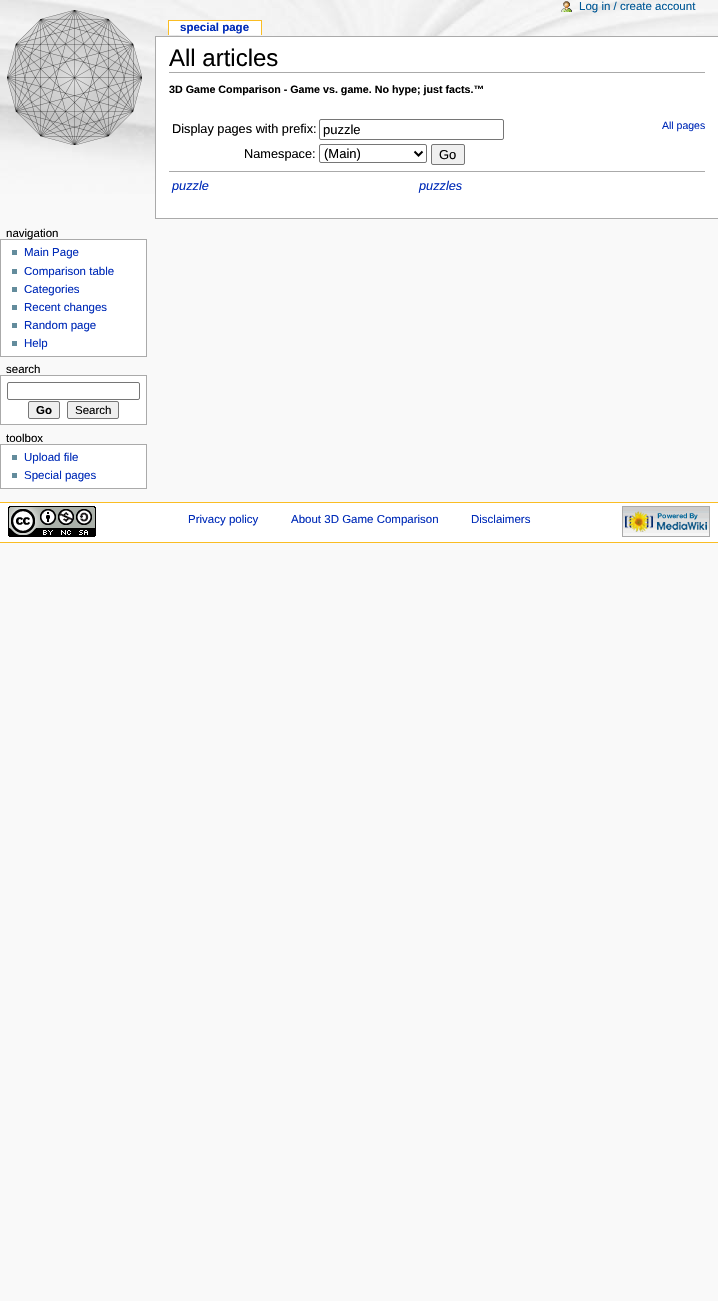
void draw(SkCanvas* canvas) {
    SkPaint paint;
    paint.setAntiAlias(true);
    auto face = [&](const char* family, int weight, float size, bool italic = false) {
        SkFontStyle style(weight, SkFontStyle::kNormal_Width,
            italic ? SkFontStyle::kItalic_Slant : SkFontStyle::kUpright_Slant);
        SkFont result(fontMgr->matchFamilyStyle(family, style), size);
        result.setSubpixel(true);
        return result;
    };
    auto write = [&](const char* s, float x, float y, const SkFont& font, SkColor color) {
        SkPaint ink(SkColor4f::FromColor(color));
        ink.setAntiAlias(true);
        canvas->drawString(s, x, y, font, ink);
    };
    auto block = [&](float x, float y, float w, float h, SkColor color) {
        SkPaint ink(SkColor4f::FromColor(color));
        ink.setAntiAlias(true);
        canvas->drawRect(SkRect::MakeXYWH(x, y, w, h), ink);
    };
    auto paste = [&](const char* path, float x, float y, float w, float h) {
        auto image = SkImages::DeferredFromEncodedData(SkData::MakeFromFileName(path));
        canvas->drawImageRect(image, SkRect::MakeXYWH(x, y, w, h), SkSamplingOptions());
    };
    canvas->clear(SkColorSetRGB(249, 249, 249));
    paste("pic1.png", 0, 0, 718, 194);
    paste("pic2.png", 561, 1, 11, 11);
    auto kFont1 = face("Liberation Sans", 400, 11.5f);
    write("Log in / create account", 579, 10, kFont1, SkColorSetRGB(0, 88, 150));
    paste("pic3.png", 7, 10, 135, 135);
    block(169, 21, 92, 14, SK_ColorWHITE);
    auto kFont2 = face("Liberation Sans", 700, 11.5f);
    write("special page", 180, 31, kFont2, SkColorSetRGB(0, 43, 184));
    block(168, 20, 94, 1, SkColorSetRGB(250, 189, 35));
    block(261, 20, 1, 15, SkColorSetRGB(250, 189, 35));
    block(168, 20, 1, 15, SkColorSetRGB(250, 189, 35));
    paint.setColor(SK_ColorWHITE);
    canvas->drawRect(SkRect::MakeXYWH(0.5f, 239.5f, 146, 117), paint);
    paint.setStyle(SkPaint::kStroke_Style);
    paint.setStrokeWidth(1);
    paint.setColor(SkColorSetRGB(170, 170, 170));
    canvas->drawRect(SkRect::MakeXYWH(0.5f, 239.5f, 146, 117), paint);
    write("navigation", 6, 237, kFont1, SK_ColorBLACK);
    block(12, 250, 5, 5, SkColorSetRGB(99, 140, 156));
    write("Main Page", 24, 256, kFont1, SkColorSetRGB(0, 43, 184));
    block(12, 269, 5, 5, SkColorSetRGB(99, 140, 156));
    write("Comparison table", 24, 275, kFont1, SkColorSetRGB(0, 43, 184));
    block(12, 287, 5, 5, SkColorSetRGB(99, 140, 156));
    write("Categories", 24, 293, kFont1, SkColorSetRGB(0, 43, 184));
    block(12, 305, 5, 5, SkColorSetRGB(99, 140, 156));
    write("Recent changes", 24, 311, kFont1, SkColorSetRGB(0, 43, 184));
    block(12, 323, 5, 5, SkColorSetRGB(99, 140, 156));
    write("Random page", 24, 329, kFont1, SkColorSetRGB(0, 43, 184));
    block(12, 341, 5, 5, SkColorSetRGB(99, 140, 156));
    write("Help", 24, 347, kFont1, SkColorSetRGB(0, 43, 184));
    write("search", 6, 373, kFont1, SK_ColorBLACK);
    paint.setStyle(SkPaint::kFill_Style);
    paint.setColor(SK_ColorWHITE);
    canvas->drawRect(SkRect::MakeXYWH(0.5f, 375.5f, 146, 49), paint);
    paint.setStyle(SkPaint::kStroke_Style);
    paint.setColor(SkColorSetRGB(170, 170, 170));
    canvas->drawRect(SkRect::MakeXYWH(0.5f, 375.5f, 146, 49), paint);
    paint.setColor(SkColorSetRGB(118, 118, 118));
    canvas->drawRoundRect(SkRect::MakeXYWH(7.5f, 382.5f, 132, 17), 1.5f, 1.5f, paint);
    paint.setStyle(SkPaint::kFill_Style);
    paint.setColor(SkColorSetRGB(239, 239, 239));
    canvas->drawRoundRect(SkRect::MakeXYWH(28.5f, 401.5f, 31, 17), 1.5f, 1.5f, paint);
    paint.setStyle(SkPaint::kStroke_Style);
    paint.setColor(SkColorSetRGB(118, 118, 118));
    canvas->drawRoundRect(SkRect::MakeXYWH(28.5f, 401.5f, 31, 17), 1.5f, 1.5f, paint);
    write("Go", 36, 414, kFont2, SK_ColorBLACK);
    paint.setStyle(SkPaint::kFill_Style);
    paint.setColor(SkColorSetRGB(239, 239, 239));
    canvas->drawRoundRect(SkRect::MakeXYWH(67.5f, 401.5f, 51, 17), 1.5f, 1.5f, paint);
    paint.setStyle(SkPaint::kStroke_Style);
    paint.setColor(SkColorSetRGB(118, 118, 118));
    canvas->drawRoundRect(SkRect::MakeXYWH(67.5f, 401.5f, 51, 17), 1.5f, 1.5f, paint);
    write("Search", 75, 414, kFont1, SK_ColorBLACK);
    write("toolbox", 6, 442, kFont1, SK_ColorBLACK);
    paint.setStyle(SkPaint::kFill_Style);
    paint.setColor(SK_ColorWHITE);
    canvas->drawRect(SkRect::MakeXYWH(0.5f, 444.5f, 146, 44), paint);
    paint.setStyle(SkPaint::kStroke_Style);
    paint.setColor(SkColorSetRGB(170, 170, 170));
    canvas->drawRect(SkRect::MakeXYWH(0.5f, 444.5f, 146, 44), paint);
    block(12, 455, 5, 5, SkColorSetRGB(99, 140, 156));
    write("Upload file", 24, 461, kFont1, SkColorSetRGB(0, 43, 184));
    block(12, 473, 5, 5, SkColorSetRGB(99, 140, 156));
    write("Special pages", 24, 479, kFont1, SkColorSetRGB(0, 43, 184));
    block(156, 37, 562, 181, SK_ColorWHITE);
    block(155, 36, 563, 1, SkColorSetRGB(170, 170, 170));
    block(155, 218, 563, 1, SkColorSetRGB(170, 170, 170));
    block(155, 36, 1, 183, SkColorSetRGB(170, 170, 170));
    block(169, 72, 536, 1, SkColorSetRGB(170, 170, 170));
    auto kFont3 = face("Liberation Sans", 400, 24);
    write("All articles", 169, 66, kFont3, SK_ColorBLACK);
    auto kFont4 = face("Liberation Sans", 700, 10.7f);
    write("3D Game Comparison - Game vs. game. No hype; just facts.™", 169, 93, kFont4, SK_ColorBLACK);
    auto kFont5 = face("Liberation Sans", 400, 12.75f);
    write("Display pages with prefix:", 172, 133, kFont5, SK_ColorBLACK);
    paint.setColor(SkColorSetRGB(118, 118, 118));
    canvas->drawRoundRect(SkRect::MakeXYWH(319.5f, 119.5f, 184, 20), 1.5f, 1.5f, paint);
    auto kFont6 = face("Liberation Sans", 400, 13);
    write("puzzle", 323, 134, kFont6, SK_ColorBLACK);
    write("Namespace:", 244, 158, kFont5, SK_ColorBLACK);
    canvas->drawRoundRect(SkRect::MakeXYWH(319.5f, 144.5f, 107, 18), 1.5f, 1.5f, paint);
    paint.setStrokeWidth(2);
    paint.setColor(SK_ColorBLACK);
    canvas->drawPath(SkPathBuilder().moveTo(414.5f, 151.5f).lineTo(418.5f, 155.5f).lineTo(422.5f, 151.5f).detach(), paint);
    write("(Main)", 324, 158, kFont6, SK_ColorBLACK);
    paint.setStyle(SkPaint::kFill_Style);
    paint.setColor(SkColorSetRGB(239, 239, 239));
    canvas->drawRoundRect(SkRect::MakeXYWH(431.5f, 144.5f, 33, 20), 1.5f, 1.5f, paint);
    paint.setStyle(SkPaint::kStroke_Style);
    paint.setStrokeWidth(1);
    paint.setColor(SkColorSetRGB(118, 118, 118));
    canvas->drawRoundRect(SkRect::MakeXYWH(431.5f, 144.5f, 33, 20), 1.5f, 1.5f, paint);
    write("Go", 439, 159, kFont6, SK_ColorBLACK);
    auto kFont7 = face("Liberation Sans", 400, 10.5f);
    write("All pages", 662, 129, kFont7, SkColorSetRGB(0, 43, 184));
    block(169, 171, 536, 1, SkColorSetRGB(170, 170, 170));
    auto kFont8 = face("Liberation Sans", 400, 12.75f, true);
    write("puzzle", 172, 190, kFont8, SkColorSetRGB(0, 43, 184));
    write("puzzles", 419, 190, kFont8, SkColorSetRGB(0, 43, 184));
    block(0, 503, 718, 39, SK_ColorWHITE);
    block(0, 502, 718, 1, SkColorSetRGB(250, 189, 35));
    block(0, 542, 718, 1, SkColorSetRGB(250, 189, 35));
    paste("pic4.png", 8, 506, 88, 31);
    write("Privacy policy", 188, 523, kFont1, SkColorSetRGB(0, 43, 184));
    write("About 3D Game Comparison", 291, 523, kFont1, SkColorSetRGB(0, 43, 184));
    write("Disclaimers", 471, 523, kFont1, SkColorSetRGB(0, 43, 184));
    paste("pic5.png", 622, 506, 88, 31);
}
